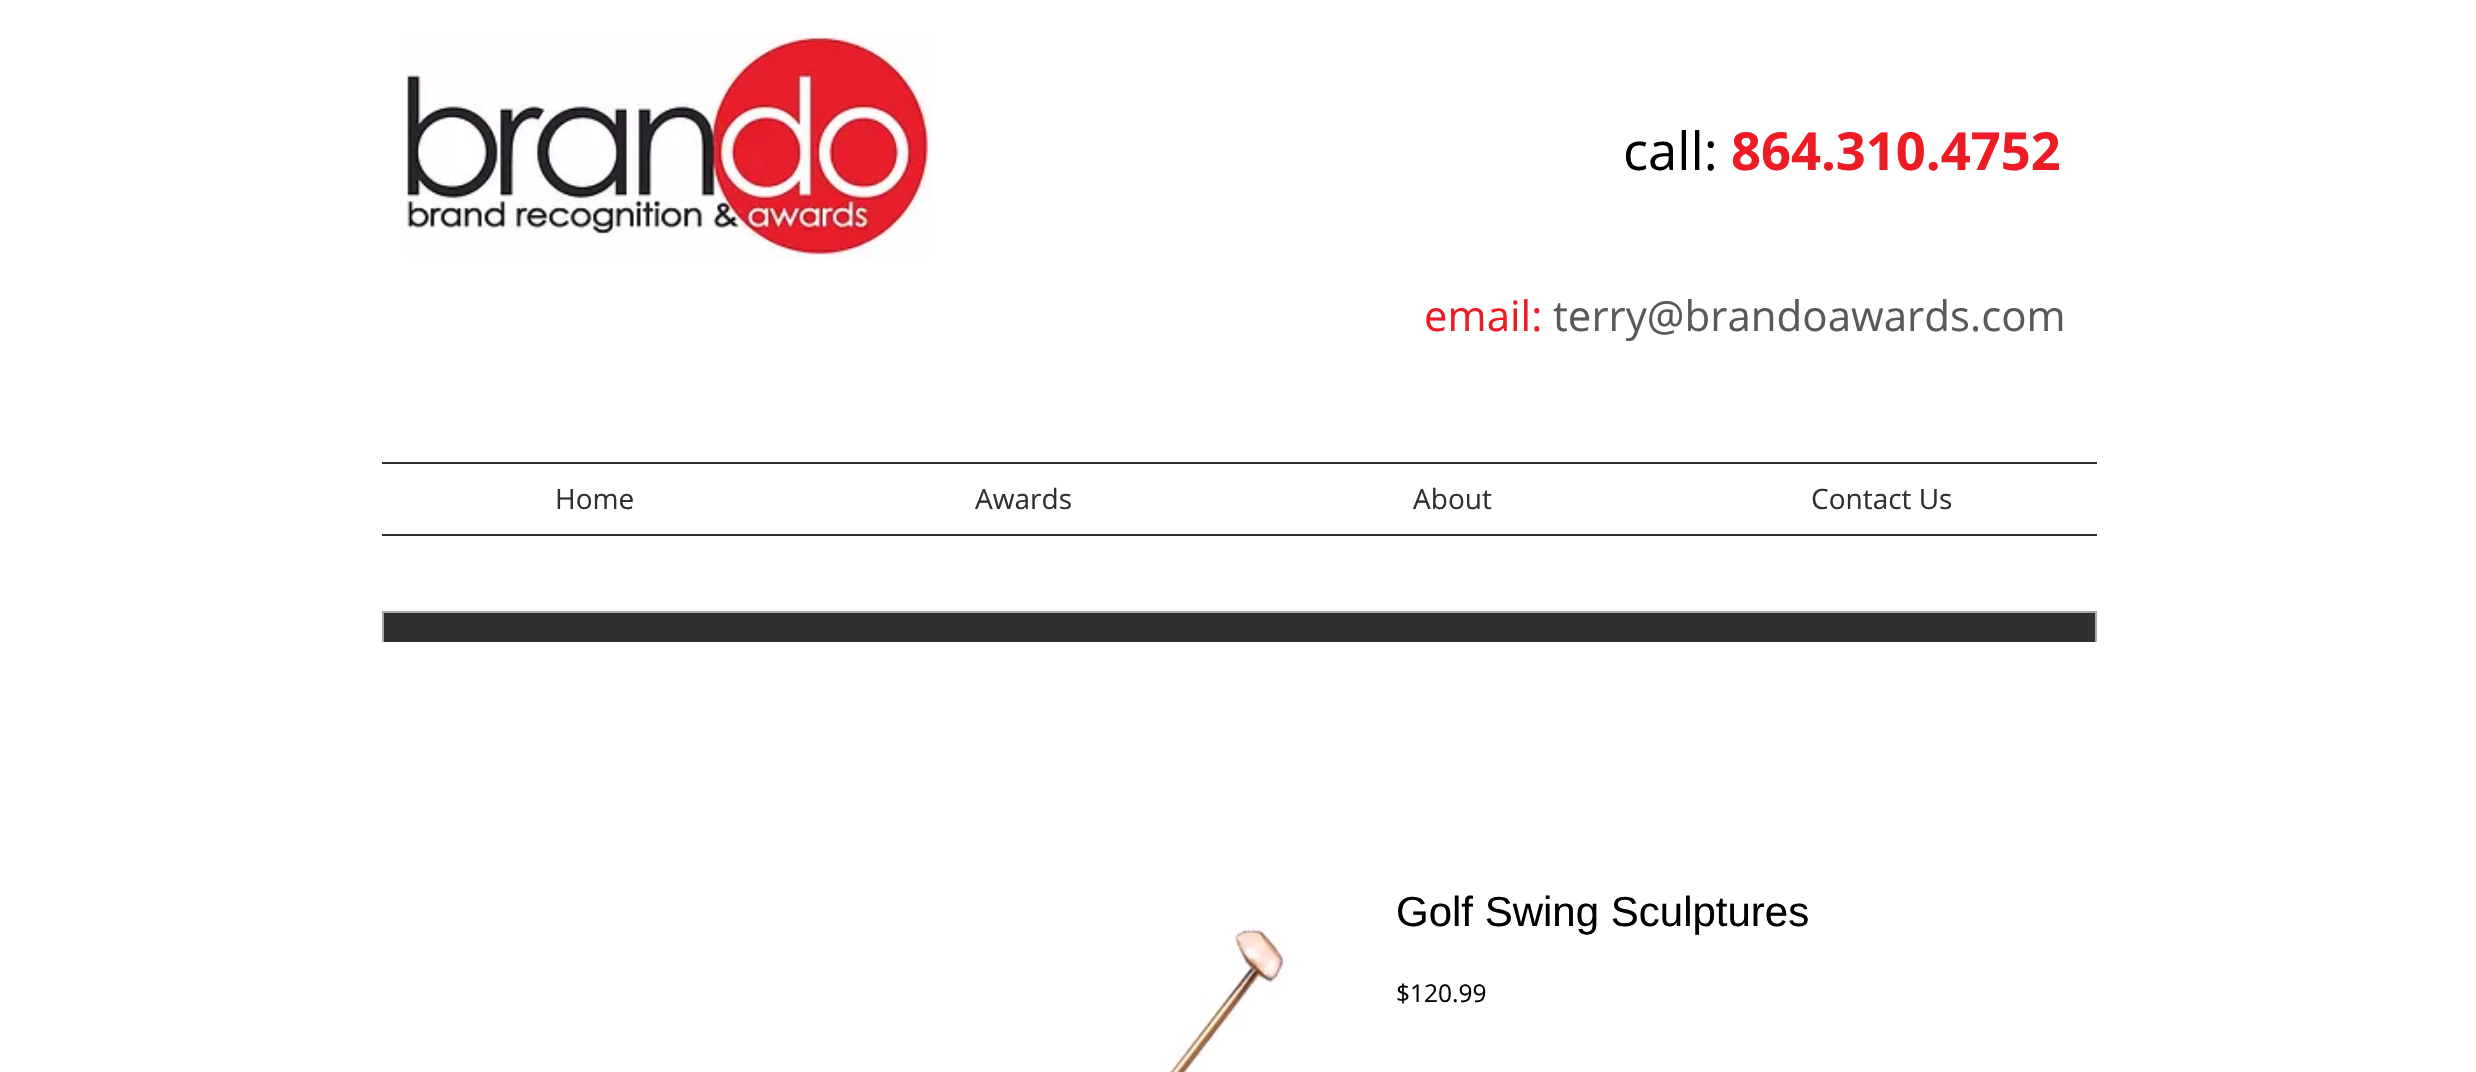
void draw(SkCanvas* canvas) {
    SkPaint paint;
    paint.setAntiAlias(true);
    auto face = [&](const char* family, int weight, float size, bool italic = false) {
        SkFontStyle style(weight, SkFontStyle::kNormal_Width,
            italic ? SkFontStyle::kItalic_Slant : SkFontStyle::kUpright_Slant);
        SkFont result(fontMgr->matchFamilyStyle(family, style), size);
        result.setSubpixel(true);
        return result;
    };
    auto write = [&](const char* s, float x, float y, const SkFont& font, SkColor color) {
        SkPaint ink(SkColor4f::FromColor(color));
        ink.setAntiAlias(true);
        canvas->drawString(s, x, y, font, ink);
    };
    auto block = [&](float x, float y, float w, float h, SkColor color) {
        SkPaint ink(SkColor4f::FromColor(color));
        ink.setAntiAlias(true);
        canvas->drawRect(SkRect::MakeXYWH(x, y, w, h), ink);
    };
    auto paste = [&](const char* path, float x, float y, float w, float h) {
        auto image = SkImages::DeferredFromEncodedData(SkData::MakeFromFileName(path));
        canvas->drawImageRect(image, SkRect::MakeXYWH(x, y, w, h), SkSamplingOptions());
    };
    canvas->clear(SK_ColorWHITE);
    paste("pic1.png", 406, 33, 526, 226);
    auto kFont1 = face("Open Sans", 400, 52.5f);
    write("call:", 1623, 170, kFont1, SK_ColorBLACK);
    auto kFont2 = face("Open Sans", 700, 52.5f);
    write("864.310.4752", 1731, 170, kFont2, SkColorSetRGB(237, 28, 36));
    auto kFont3 = face("Open Sans", 400, 42);
    write("email:", 1424, 331, kFont3, SkColorSetRGB(237, 28, 36));
    write("terry@brandoawards.com", 1553, 331, kFont3, SkColorSetRGB(89, 89, 89));
    block(382, 462, 1715, 2, SkColorSetRGB(48, 48, 48));
    block(382, 534, 1715, 2, SkColorSetRGB(48, 48, 48));
    auto kFont4 = face("Open Sans", 400, 28);
    write("Home", 555, 509, kFont4, SkColorSetRGB(48, 48, 48));
    write("Awards", 975, 509, kFont4, SkColorSetRGB(48, 48, 48));
    write("About", 1413, 509, kFont4, SkColorSetRGB(48, 48, 48));
    write("Contact Us", 1811, 509, kFont4, SkColorSetRGB(48, 48, 48));
    block(384, 613, 1711, 29, SkColorSetRGB(48, 48, 48));
    paint.setStyle(SkPaint::kStroke_Style);
    paint.setStrokeWidth(2);
    paint.setColor(SkColorSetRGB(168, 168, 168));
    canvas->drawRect(SkRect::MakeXYWH(383, 612, 1713, 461), paint);
    block(382, 642, 1715, 430, SK_ColorWHITE);
    paste("pic2.png", 1162, 926, 126, 146);
    auto kFont5 = face("Liberation Sans", 400, 42);
    write("Golf Swing Sculptures", 1396, 926, kFont5, SK_ColorBLACK);
    auto kFont6 = face("Open Sans", 400, 24.5f);
    write("$120.99", 1396, 1002, kFont6, SK_ColorBLACK);
}
